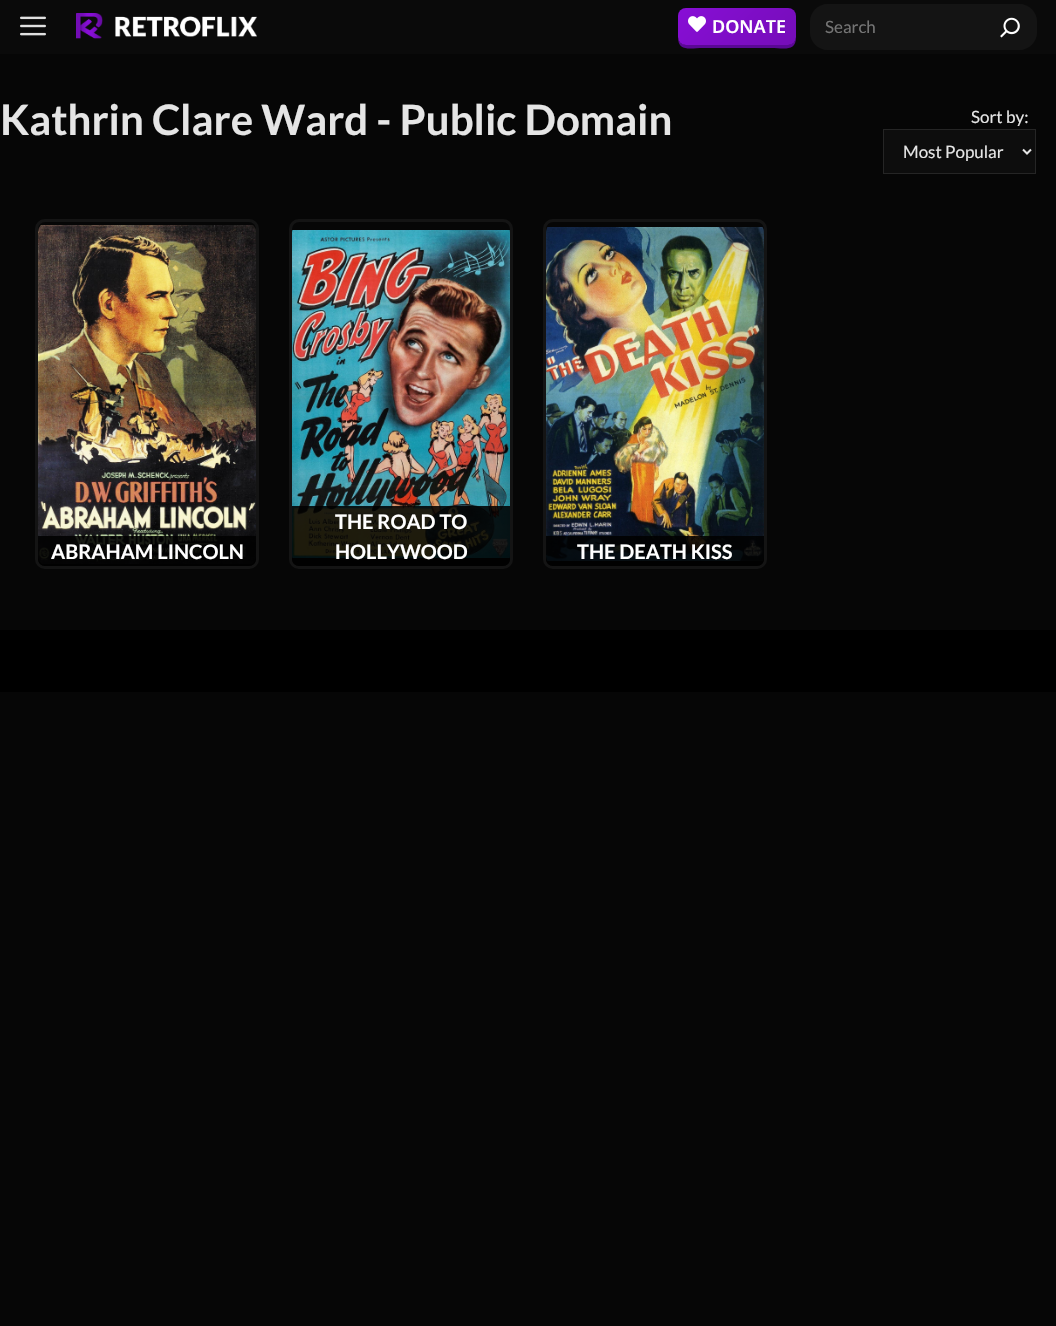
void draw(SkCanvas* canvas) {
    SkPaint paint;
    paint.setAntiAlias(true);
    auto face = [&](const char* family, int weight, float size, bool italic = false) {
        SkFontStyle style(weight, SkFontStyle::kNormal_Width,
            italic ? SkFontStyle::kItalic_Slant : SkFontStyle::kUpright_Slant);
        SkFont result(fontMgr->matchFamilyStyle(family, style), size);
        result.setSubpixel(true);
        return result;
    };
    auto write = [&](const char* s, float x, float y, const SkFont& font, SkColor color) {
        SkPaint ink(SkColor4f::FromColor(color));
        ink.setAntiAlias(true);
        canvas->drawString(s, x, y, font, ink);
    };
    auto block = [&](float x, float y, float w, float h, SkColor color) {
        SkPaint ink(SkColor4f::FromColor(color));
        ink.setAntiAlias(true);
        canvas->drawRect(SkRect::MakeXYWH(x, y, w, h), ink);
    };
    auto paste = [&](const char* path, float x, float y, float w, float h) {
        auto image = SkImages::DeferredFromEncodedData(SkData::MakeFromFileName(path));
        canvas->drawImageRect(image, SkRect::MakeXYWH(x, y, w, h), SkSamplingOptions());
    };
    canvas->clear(SkColorSetRGB(6, 6, 6));
    block(0, 0, 1056, 54, SkColorSetRGB(10, 10, 10));
    paste("pic1.png", 20, 16, 26, 20);
    paste("pic2.png", 76, 13, 181, 26);
    paint.setColor(SkColorSetRGB(90, 8, 149));
    canvas->drawPath(SkPathBuilder().moveTo(678, 37).cubicTo(678, 52, 690, 48, 703, 48).lineTo(771, 48).cubicTo(784, 48, 796, 52, 796, 37).cubicTo(796, 41, 792, 45, 788, 45).lineTo(686, 45).cubicTo(682, 45, 678, 41, 678, 37).close().detach(), paint);
    {
        const SkColor colors[] = {SkColorSetRGB(136, 14, 214), SkColorSetRGB(117, 13, 184)};
        const float stops[] = {0, 1};
        const SkPoint ends[] = {{698, -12}, {776, 65}};
        paint.setShader(SkGradientShader::MakeLinear(ends, colors, stops, 2, SkTileMode::kClamp));
        paint.setAlpha(255);
    }
    canvas->drawRoundRect(SkRect::MakeXYWH(678, 8, 118, 37), 8, 8, paint);
    paste("pic3.png", 688, 16, 18, 16);
    auto kFont1 = face("Noto Sans", 600, 18);
    write("DONATE", 712, 33, kFont1, SK_ColorWHITE);
    paint.setShader(nullptr);
    paint.setColor(SkColorSetRGB(20, 20, 20));
    canvas->drawPath(SkPathBuilder().moveTo(828, 4).lineTo(984, 4).lineTo(984, 50).lineTo(828, 50).cubicTo(818, 50, 810, 42, 810, 32).lineTo(810, 22).cubicTo(810, 12, 818, 4, 828, 4).close().detach(), paint);
    auto kFont2 = face("Lato", 400, 17);
    write("Search", 825, 33, kFont2, SkColorSetRGB(117, 117, 117));
    canvas->drawPath(SkPathBuilder().moveTo(984, 4).lineTo(1019, 4).cubicTo(1029, 4, 1037, 12, 1037, 22).lineTo(1037, 32).cubicTo(1037, 42, 1029, 50, 1019, 50).lineTo(984, 50).close().detach(), paint);
    paste("pic4.png", 1000, 17, 20, 21);
    auto kFont3 = face("Lato", 700, 42);
    write("Kathrin Clare Ward - Public Domain", 0, 135, kFont3, SkColorSetRGB(229, 229, 229));
    write("Sort by:", 971, 123, kFont2, SkColorSetRGB(229, 229, 229));
    paint.setColor(SkColorSetRGB(13, 13, 13));
    canvas->drawRect(SkRect::MakeXYWH(883.5f, 129.5f, 152, 44), paint);
    paint.setStyle(SkPaint::kStroke_Style);
    paint.setStrokeWidth(1);
    paint.setColor(SkColorSetRGB(37, 37, 37));
    canvas->drawRect(SkRect::MakeXYWH(883.5f, 129.5f, 152, 44), paint);
    paint.setStrokeWidth(2);
    paint.setColor(SkColorSetRGB(229, 229, 229));
    canvas->drawPath(SkPathBuilder().moveTo(1023, 149.5f).lineTo(1027, 153.5f).lineTo(1031, 149.5f).detach(), paint);
    write("Most Popular", 903, 158, kFont2, SkColorSetRGB(229, 229, 229));
    paint.setStrokeWidth(3);
    paint.setColor(SkColorSetRGB(20, 20, 20));
    canvas->drawRoundRect(SkRect::MakeXYWH(36.5f, 220.5f, 221, 347), 8.5f, 8.5f, paint);
    paste("pic5.png", 38, 225, 218, 339);
    paint.setStyle(SkPaint::kFill_Style);
    paint.setColor(SkColorSetARGB(222, 0, 0, 0));
    canvas->drawPath(SkPathBuilder().moveTo(38, 536).lineTo(256, 536).lineTo(256, 559).cubicTo(256, 563, 253, 566, 249, 566).lineTo(45, 566).cubicTo(41, 566, 38, 563, 38, 559).close().detach(), paint);
    auto kFont4 = face("Lato", 700, 20);
    write("ABRAHAM LINCOLN", 51, 559, kFont4, SK_ColorWHITE);
    paint.setStyle(SkPaint::kStroke_Style);
    paint.setColor(SkColorSetRGB(20, 20, 20));
    canvas->drawRoundRect(SkRect::MakeXYWH(290.5f, 220.5f, 221, 347), 8.5f, 8.5f, paint);
    paste("pic6.png", 292, 230, 218, 328);
    paint.setStyle(SkPaint::kFill_Style);
    paint.setColor(SkColorSetARGB(222, 0, 0, 0));
    canvas->drawPath(SkPathBuilder().moveTo(292, 506).lineTo(510, 506).lineTo(510, 559).cubicTo(510, 563, 507, 566, 503, 566).lineTo(299, 566).cubicTo(295, 566, 292, 563, 292, 559).close().detach(), paint);
    write("THE ROAD TO", 335, 529, kFont4, SK_ColorWHITE);
    write("HOLLYWOOD", 335, 559, kFont4, SK_ColorWHITE);
    paint.setStyle(SkPaint::kStroke_Style);
    paint.setColor(SkColorSetRGB(20, 20, 20));
    canvas->drawRoundRect(SkRect::MakeXYWH(544.5f, 220.5f, 221, 347), 8.5f, 8.5f, paint);
    paste("pic7.png", 546, 227, 218, 334);
    paint.setStyle(SkPaint::kFill_Style);
    paint.setColor(SkColorSetARGB(222, 0, 0, 0));
    canvas->drawPath(SkPathBuilder().moveTo(546, 536).lineTo(764, 536).lineTo(764, 559).cubicTo(764, 563, 761, 566, 757, 566).lineTo(553, 566).cubicTo(549, 566, 546, 563, 546, 559).close().detach(), paint);
    write("THE DEATH KISS", 577, 559, kFont4, SK_ColorWHITE);
    block(0, 630, 1056, 62, SK_ColorBLACK);
}
